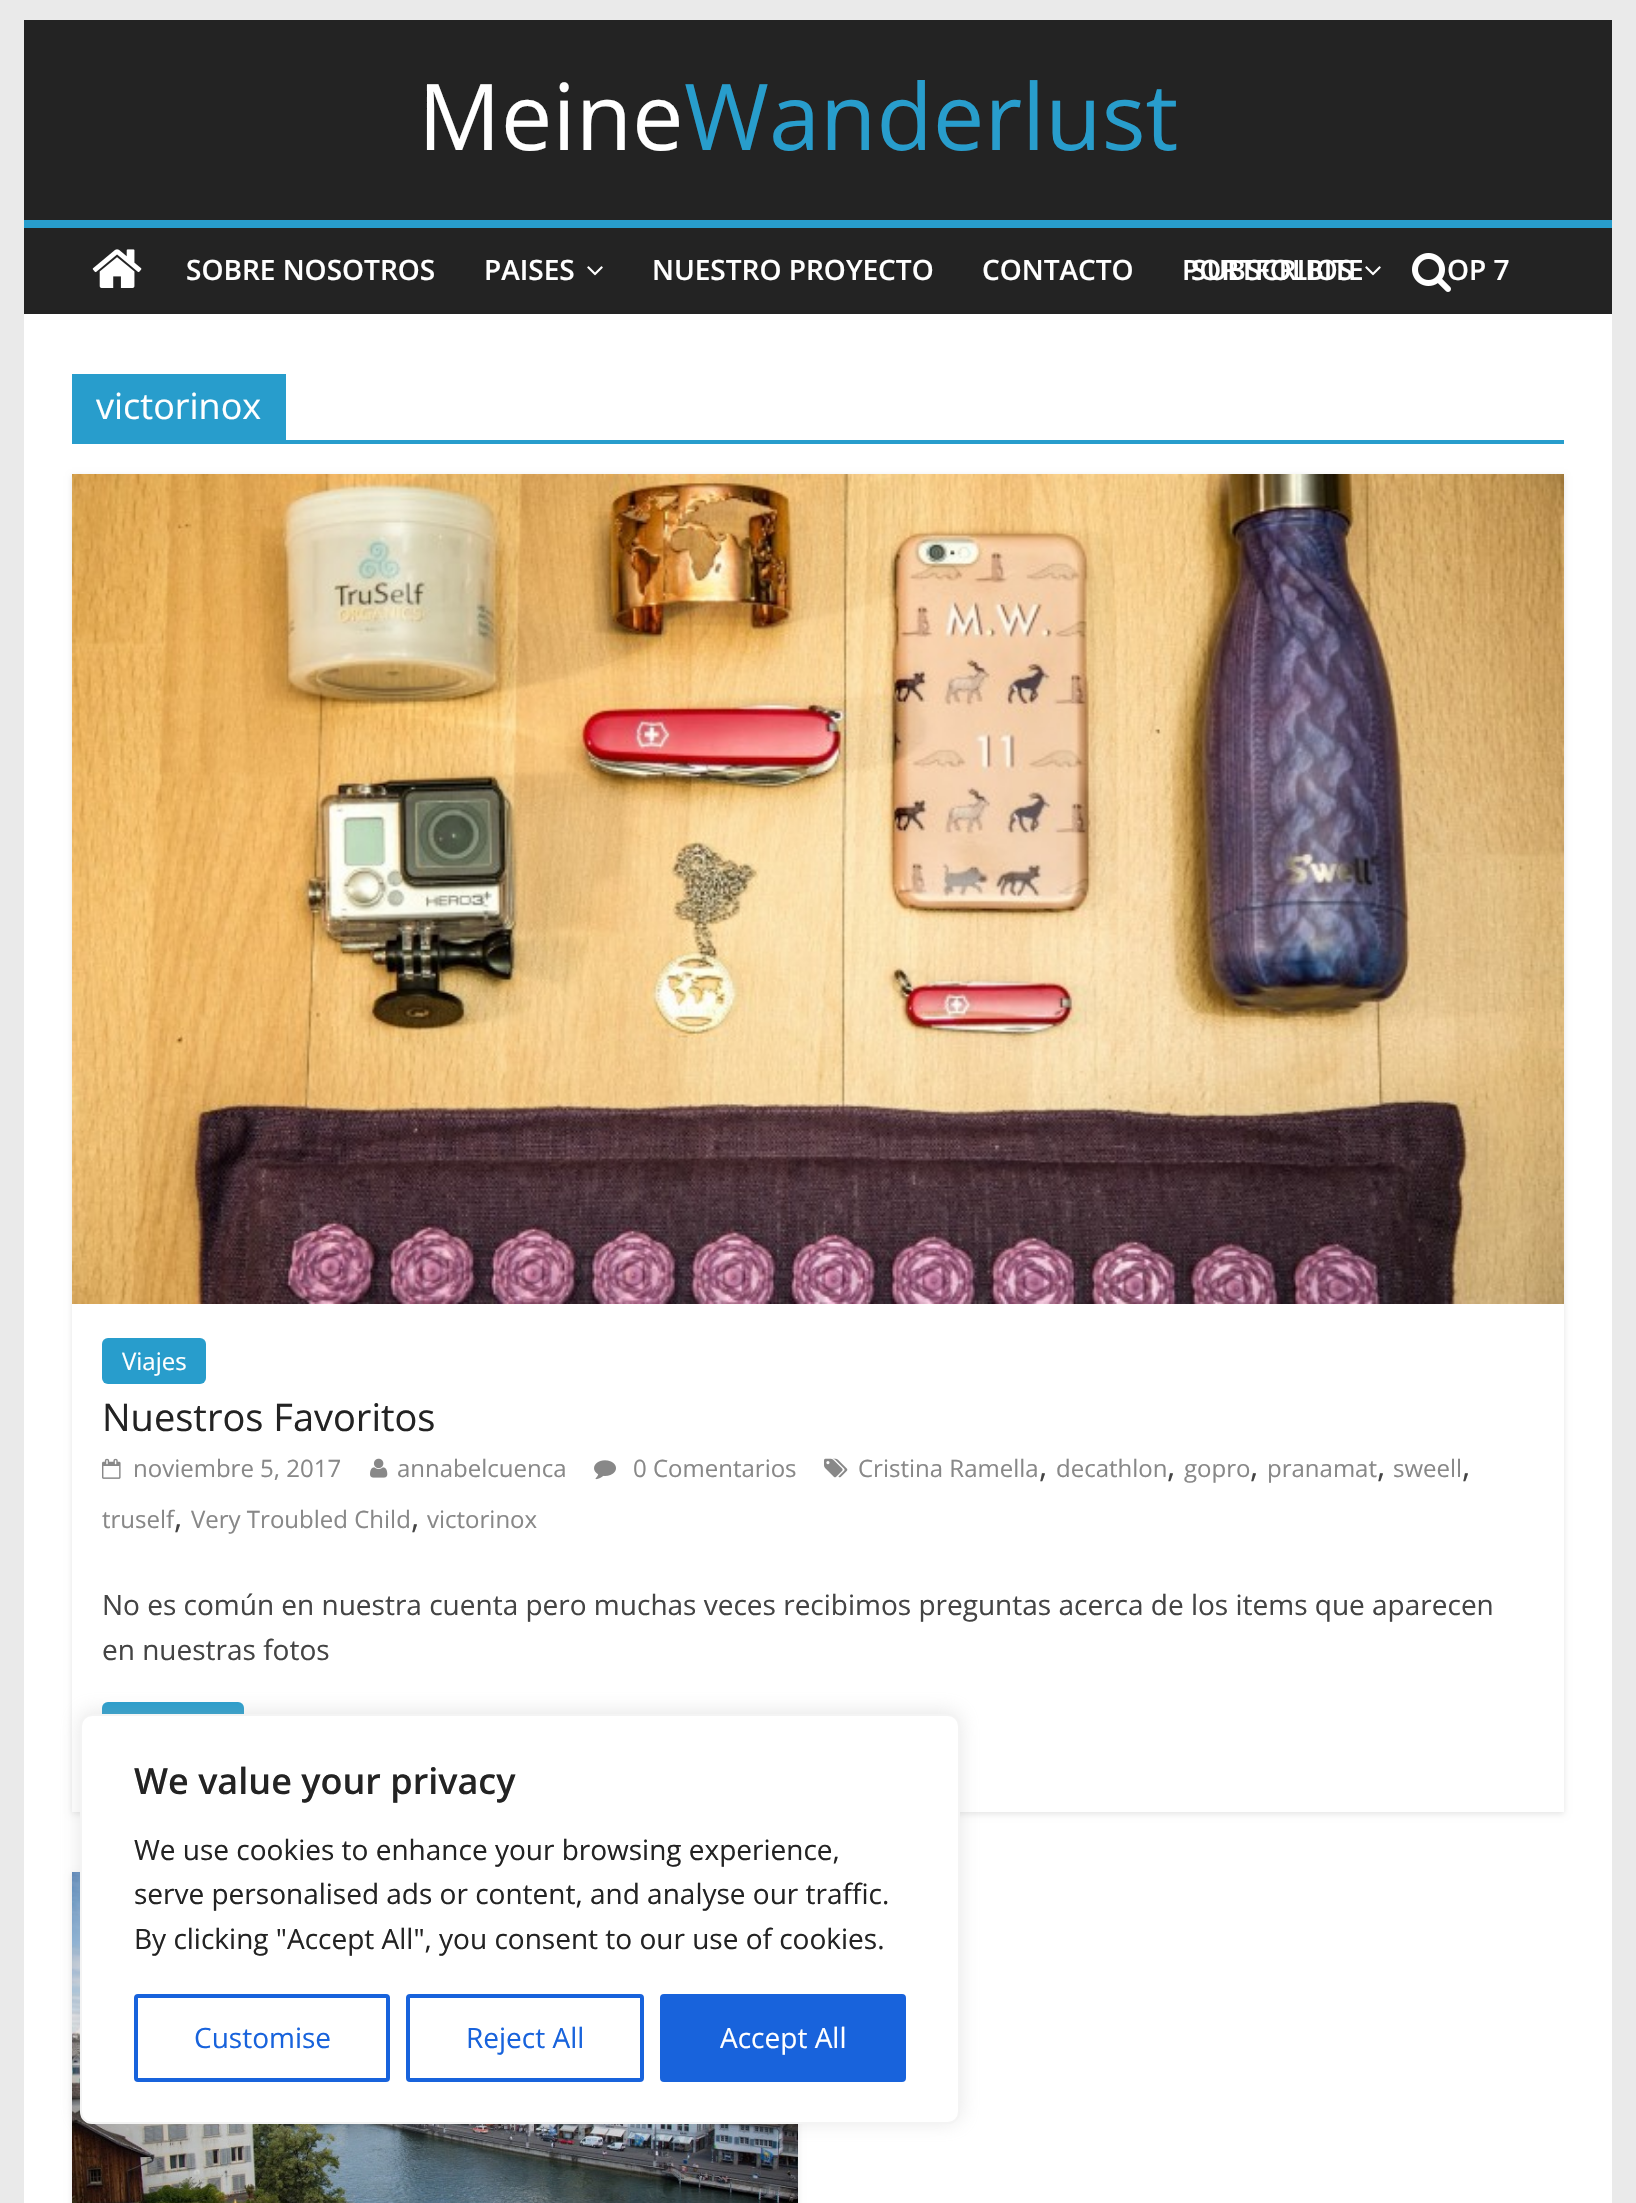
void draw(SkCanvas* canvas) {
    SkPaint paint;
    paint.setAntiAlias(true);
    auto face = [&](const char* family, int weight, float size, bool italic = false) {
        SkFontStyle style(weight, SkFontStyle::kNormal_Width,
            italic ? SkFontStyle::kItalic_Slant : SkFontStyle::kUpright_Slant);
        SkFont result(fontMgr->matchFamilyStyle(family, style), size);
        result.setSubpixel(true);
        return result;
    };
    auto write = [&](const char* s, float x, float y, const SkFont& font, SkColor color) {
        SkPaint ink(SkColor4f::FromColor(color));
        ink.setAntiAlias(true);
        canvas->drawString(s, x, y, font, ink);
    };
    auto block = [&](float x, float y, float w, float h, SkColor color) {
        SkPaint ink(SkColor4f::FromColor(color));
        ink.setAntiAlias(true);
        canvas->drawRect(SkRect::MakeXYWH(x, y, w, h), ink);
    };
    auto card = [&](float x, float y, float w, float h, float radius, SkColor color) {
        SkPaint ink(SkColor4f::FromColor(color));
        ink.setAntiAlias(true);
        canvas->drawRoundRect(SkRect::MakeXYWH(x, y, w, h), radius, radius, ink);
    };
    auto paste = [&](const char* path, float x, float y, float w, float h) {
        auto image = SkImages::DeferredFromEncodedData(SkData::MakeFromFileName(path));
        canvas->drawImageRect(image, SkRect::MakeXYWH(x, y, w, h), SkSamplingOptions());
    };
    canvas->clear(SkColorSetRGB(234, 234, 234));
    block(24, 20, 1588, 200, SkColorSetRGB(35, 35, 35));
    auto kFont1 = face("Open Sans", 400, 92);
    write("Meine", 418, 150, kFont1, SK_ColorWHITE);
    write("Wanderlust", 684, 150, kFont1, SkColorSetRGB(40, 157, 204));
    block(24, 228, 1588, 86, SkColorSetRGB(35, 35, 35));
    block(24, 220, 1588, 8, SkColorSetRGB(40, 157, 204));
    paste("pic1.png", 92, 249, 50, 39);
    auto kFont2 = face("Open Sans", 600, 28);
    write("OP 7", 1447, 280, kFont2, SK_ColorWHITE);
    paste("pic2.png", 1412, 253, 39, 39);
    write("SOBRE NOSOTROS", 186, 280, kFont2, SK_ColorWHITE);
    write("PAISES", 484, 280, kFont2, SK_ColorWHITE);
    paste("pic3.png", 587, 266, 16, 10);
    write("NUESTRO PROYECTO", 652, 280, kFont2, SK_ColorWHITE);
    write("CONTACTO", 982, 280, kFont2, SK_ColorWHITE);
    write("PORTFOLIOS", 1182, 280, kFont2, SK_ColorWHITE);
    paste("pic3.png", 1365, 266, 16, 10);
    write("SUBSCRIBITE", 1191, 280, kFont2, SK_ColorWHITE);
    block(24, 314, 1588, 1889, SK_ColorWHITE);
    block(72, 440, 1492, 4, SkColorSetRGB(40, 157, 204));
    block(72, 374, 214, 66, SkColorSetRGB(40, 157, 204));
    auto kFont3 = face("Open Sans", 400, 36);
    write("victorinox", 96, 419, kFont3, SK_ColorWHITE);
    canvas->save();
    canvas->clipPath(SkPathBuilder(SkPathFillType::kEvenOdd).moveTo(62, 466).lineTo(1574, 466).lineTo(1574, 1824).lineTo(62, 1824).close().moveTo(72, 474).lineTo(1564, 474).lineTo(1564, 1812).lineTo(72, 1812).close().detach(), true);
    paint.setColor(SkColorSetARGB(26, 0, 0, 0));
    paint.setMaskFilter(SkMaskFilter::MakeBlur(kNormal_SkBlurStyle, 3));
    canvas->drawRect(SkRect::MakeXYWH(72, 476, 1492, 1338), paint);
    paint.setMaskFilter(nullptr);
    canvas->restore();
    paste("pic4.png", 72, 474, 1492, 830);
    card(102, 1338, 104, 46, 6, SkColorSetRGB(40, 157, 204));
    auto kFont4 = face("Open Sans", 400, 24);
    write("Viajes", 122, 1370, kFont4, SK_ColorWHITE);
    auto kFont5 = face("Open Sans", 400, 38);
    write("Nuestros Favoritos", 102, 1431, kFont5, SkColorSetRGB(35, 35, 35));
    paste("pic5.png", 824, 1458, 24, 20);
    write("Cristina Ramella", 858, 1477, kFont4, SkColorSetRGB(136, 136, 136));
    auto kFont6 = face("Open Sans", 400, 32);
    write(",", 1039, 1477, kFont6, SkColorSetRGB(68, 68, 68));
    write("decathlon", 1056, 1477, kFont4, SkColorSetRGB(136, 136, 136));
    write(",", 1167, 1477, kFont6, SkColorSetRGB(68, 68, 68));
    write("gopro", 1184, 1477, kFont4, SkColorSetRGB(136, 136, 136));
    write(",", 1250, 1477, kFont6, SkColorSetRGB(68, 68, 68));
    write("pranamat", 1267, 1477, kFont4, SkColorSetRGB(136, 136, 136));
    write(",", 1377, 1477, kFont6, SkColorSetRGB(68, 68, 68));
    write("sweell", 1393, 1477, kFont4, SkColorSetRGB(136, 136, 136));
    write(",", 1462, 1477, kFont6, SkColorSetRGB(68, 68, 68));
    write("truself", 102, 1528, kFont4, SkColorSetRGB(136, 136, 136));
    write(",", 174, 1528, kFont6, SkColorSetRGB(68, 68, 68));
    write("Very Troubled Child", 191, 1528, kFont4, SkColorSetRGB(136, 136, 136));
    write(",", 411, 1528, kFont6, SkColorSetRGB(68, 68, 68));
    write("victorinox", 427, 1528, kFont4, SkColorSetRGB(136, 136, 136));
    paste("pic6.png", 102, 1458, 19, 21);
    write("noviembre 5, 2017", 133, 1477, kFont4, SkColorSetRGB(136, 136, 136));
    paste("pic7.png", 370, 1458, 18, 20);
    write("annabelcuenca", 397, 1477, kFont4, SkColorSetRGB(136, 136, 136));
    paste("pic8.png", 594, 1460, 22, 20);
    write("0 Comentarios", 633, 1477, kFont4, SkColorSetRGB(136, 136, 136));
    auto kFont7 = face("Open Sans", 400, 28);
    write("No es común en nuestra cuenta pero muchas veces recibimos preguntas acerca de los items que aparecen", 102, 1615, kFont7, SkColorSetRGB(68, 68, 68));
    write("en nuestras fotos", 102, 1660, kFont7, SkColorSetRGB(68, 68, 68));
    card(102, 1702, 142, 60, 6, SkColorSetRGB(40, 157, 204));
    paint.setMaskFilter(SkMaskFilter::MakeBlur(kNormal_SkBlurStyle, 3));
    canvas->drawRect(SkRect::MakeXYWH(72, 1874, 726, 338), paint);
    paint.setMaskFilter(nullptr);
    paste("pic9.png", 72, 1872, 726, 331);
    paint.setColor(SkColorSetARGB(77, 172, 171, 171));
    paint.setMaskFilter(SkMaskFilter::MakeBlur(kNormal_SkBlurStyle, 10));
    canvas->drawRoundRect(SkRect::MakeXYWH(80, 1712, 880, 410), 12, 12, paint);
    paint.setMaskFilter(nullptr);
    paint.setColor(SK_ColorWHITE);
    canvas->drawRoundRect(SkRect::MakeXYWH(81, 1715, 878, 408), 11, 11, paint);
    paint.setStyle(SkPaint::kStroke_Style);
    paint.setStrokeWidth(2);
    paint.setColor(SkColorSetRGB(244, 244, 244));
    canvas->drawRoundRect(SkRect::MakeXYWH(81, 1715, 878, 408), 11, 11, paint);
    auto kFont8 = face("Open Sans", 600, 36);
    write("We value your privacy", 134, 1794, kFont8, SkColorSetRGB(35, 35, 35));
    write("We use cookies to enhance your browsing experience,", 134, 1860, kFont7, SkColorSetRGB(35, 35, 35));
    write("serve personalised ads or content, and analyse our traffic.", 134, 1904, kFont7, SkColorSetRGB(35, 35, 35));
    write("By clicking \"Accept All\", you consent to our use of cookies.", 134, 1949, kFont7, SkColorSetRGB(35, 35, 35));
    paint.setStrokeWidth(4);
    paint.setColor(SkColorSetRGB(24, 99, 220));
    canvas->drawRoundRect(SkRect::MakeXYWH(136, 1996, 252, 84), 2, 2, paint);
    write("Customise", 194, 2048, kFont7, SkColorSetRGB(24, 99, 220));
    canvas->drawRoundRect(SkRect::MakeXYWH(408, 1996, 234, 84), 2, 2, paint);
    write("Reject All", 466, 2048, kFont7, SkColorSetRGB(24, 99, 220));
    paint.setStyle(SkPaint::kFill_Style);
    canvas->drawRoundRect(SkRect::MakeXYWH(662, 1996, 242, 84), 2, 2, paint);
    paint.setStyle(SkPaint::kStroke_Style);
    canvas->drawRoundRect(SkRect::MakeXYWH(662, 1996, 242, 84), 2, 2, paint);
    write("Accept All", 720, 2048, kFont7, SK_ColorWHITE);
}
